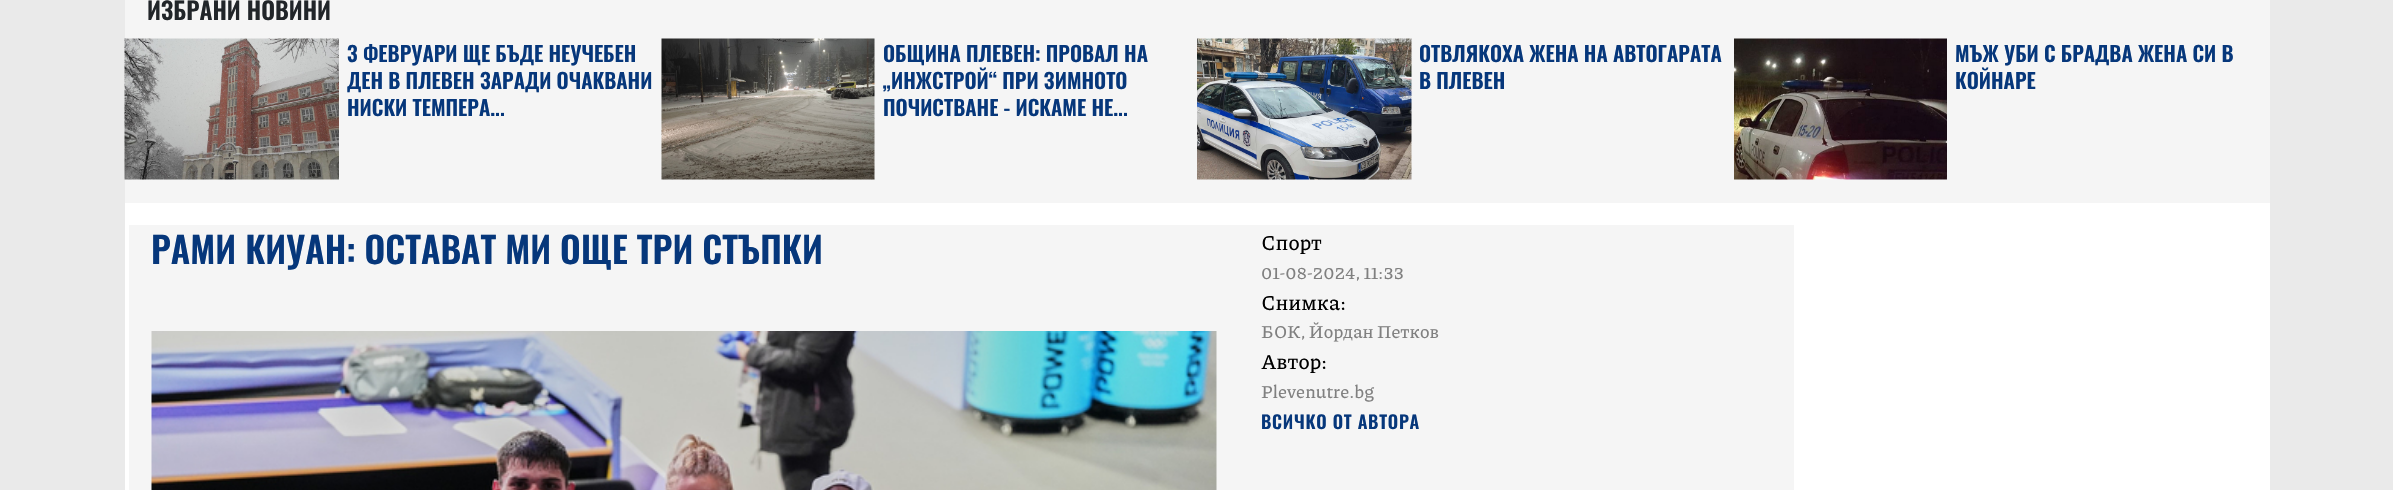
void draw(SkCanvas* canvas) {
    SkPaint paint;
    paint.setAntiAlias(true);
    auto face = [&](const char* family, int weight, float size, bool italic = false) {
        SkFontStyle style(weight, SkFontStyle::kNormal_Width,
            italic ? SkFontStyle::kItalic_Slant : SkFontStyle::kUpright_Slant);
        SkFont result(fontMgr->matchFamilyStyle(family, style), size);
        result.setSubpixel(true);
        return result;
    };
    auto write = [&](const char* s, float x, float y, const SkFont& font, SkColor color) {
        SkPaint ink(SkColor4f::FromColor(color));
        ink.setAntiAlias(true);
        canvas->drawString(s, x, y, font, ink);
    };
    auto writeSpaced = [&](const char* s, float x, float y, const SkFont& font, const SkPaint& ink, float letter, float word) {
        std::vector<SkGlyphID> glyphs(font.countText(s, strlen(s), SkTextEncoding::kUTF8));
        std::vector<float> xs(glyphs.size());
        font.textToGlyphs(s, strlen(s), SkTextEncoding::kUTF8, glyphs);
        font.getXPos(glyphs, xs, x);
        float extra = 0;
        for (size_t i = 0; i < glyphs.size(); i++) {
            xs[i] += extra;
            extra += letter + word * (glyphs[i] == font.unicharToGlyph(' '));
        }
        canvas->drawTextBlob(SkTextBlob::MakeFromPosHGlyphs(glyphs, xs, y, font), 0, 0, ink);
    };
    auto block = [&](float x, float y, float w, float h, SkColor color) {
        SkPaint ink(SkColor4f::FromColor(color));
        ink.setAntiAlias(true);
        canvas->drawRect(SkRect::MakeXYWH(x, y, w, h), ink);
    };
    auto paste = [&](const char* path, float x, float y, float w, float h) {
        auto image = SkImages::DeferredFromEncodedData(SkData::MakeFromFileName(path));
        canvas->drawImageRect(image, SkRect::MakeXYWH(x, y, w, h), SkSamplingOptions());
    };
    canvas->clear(SkColorSetRGB(234, 234, 234));
    block(125, 203, 2145, 287, SK_ColorWHITE);
    block(125, 0, 2145, 39, SkColorSetRGB(245, 245, 245));
    auto kFont1 = face("Oswald", 600, 24);
    write("ИЗБРАНИ НОВИНИ", 147, 20, kFont1, SkColorSetRGB(33, 37, 41));
    block(125, 39, 2145, 164, SkColorSetRGB(245, 245, 245));
    paste("pic1.png", 124, 38, 215, 142);
    auto kFont2 = face("Oswald", 600, 21);
    write("3 ФЕВРУАРИ ЩЕ БЪДЕ НЕУЧЕБЕН", 347, 62, kFont2, SkColorSetRGB(6, 55, 123));
    write("ДЕН В ПЛЕВЕН ЗАРАДИ ОЧАКВАНИ", 347, 89, kFont2, SkColorSetRGB(6, 55, 123));
    write("НИСКИ ТЕМПЕРА...", 347, 116, kFont2, SkColorSetRGB(6, 55, 123));
    paste("pic2.png", 661, 38, 214, 142);
    write("ОБЩИНА ПЛЕВЕН: ПРОВАЛ НА", 883, 62, kFont2, SkColorSetRGB(6, 55, 123));
    write("„ИНЖСТРОЙ“ ПРИ ЗИМНОТО", 883, 89, kFont2, SkColorSetRGB(6, 55, 123));
    write("ПОЧИСТВАНЕ - ИСКАМЕ НЕ...", 883, 116, kFont2, SkColorSetRGB(6, 55, 123));
    paste("pic3.png", 1197, 38, 215, 142);
    write("ОТВЛЯКОХА ЖЕНА НА АВТОГАРАТА", 1419, 62, kFont2, SkColorSetRGB(6, 55, 123));
    write("В ПЛЕВЕН", 1419, 89, kFont2, SkColorSetRGB(6, 55, 123));
    paste("pic4.png", 1734, 38, 213, 142);
    write("МЪЖ УБИ С БРАДВА ЖЕНА СИ В", 1955, 62, kFont2, SkColorSetRGB(6, 55, 123));
    write("КОЙНАРЕ", 1955, 89, kFont2, SkColorSetRGB(6, 55, 123));
    block(129, 225, 1665, 265, SkColorSetRGB(245, 245, 245));
    auto kFont3 = face("Oswald", 600, 36);
    write("РАМИ КИУАН: ОСТАВАТ МИ ОЩЕ ТРИ СТЪПКИ", 151, 264, kFont3, SkColorSetRGB(6, 55, 123));
    paste("pic5.png", 151, 331, 1066, 159);
    auto kFont4 = face("Piazzolla", 100, 21);
    write("Спорт", 1261, 250, kFont4, SK_ColorBLACK);
    auto kFont5 = face("Piazzolla", 100, 18);
    write("01-08-2024, 11:33", 1261, 279, kFont5, SkColorSetRGB(128, 128, 128));
    write("Снимка:", 1261, 310, kFont4, SK_ColorBLACK);
    write("БОК, Йордан Петков", 1261, 338, kFont5, SkColorSetRGB(128, 128, 128));
    write("Автор:", 1261, 369, kFont4, SK_ColorBLACK);
    write("Plevenutre.bg", 1261, 398, kFont5, SkColorSetRGB(128, 128, 128));
    auto kFont6 = face("Oswald", 600, 18);
    paint.setColor(SkColorSetRGB(6, 55, 123));
    writeSpaced("ВСИЧКО ОТ АВТОРА", 1261, 429, kFont6, paint, 0.75f, 0);
}
